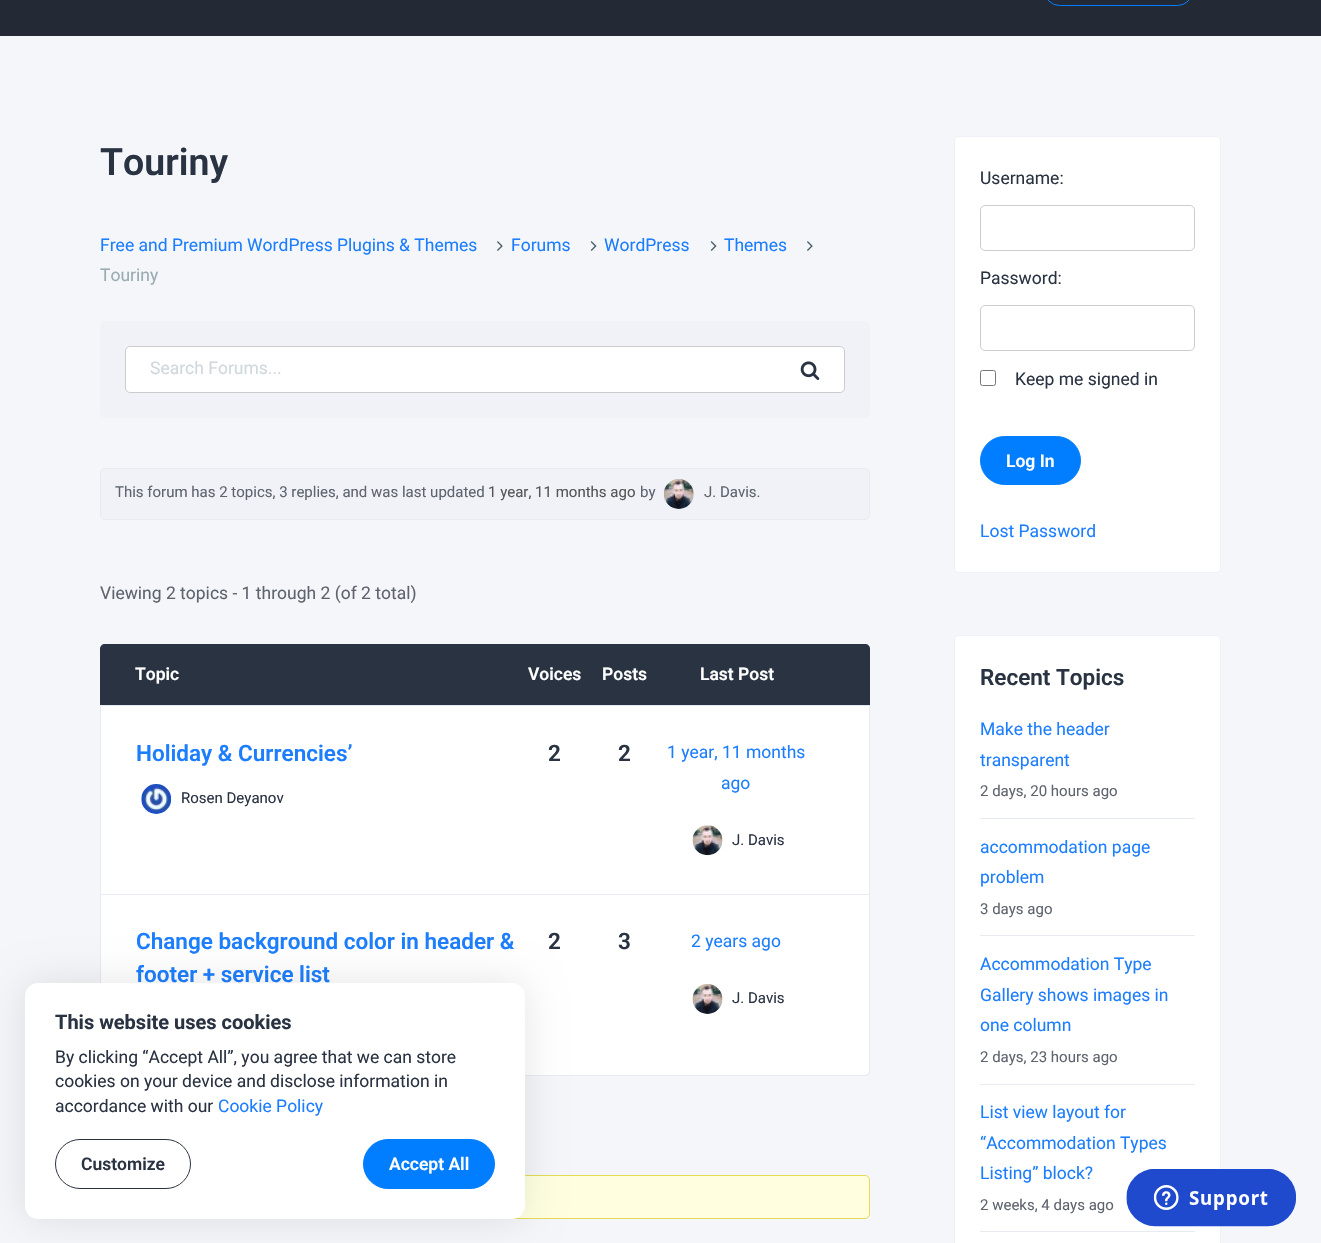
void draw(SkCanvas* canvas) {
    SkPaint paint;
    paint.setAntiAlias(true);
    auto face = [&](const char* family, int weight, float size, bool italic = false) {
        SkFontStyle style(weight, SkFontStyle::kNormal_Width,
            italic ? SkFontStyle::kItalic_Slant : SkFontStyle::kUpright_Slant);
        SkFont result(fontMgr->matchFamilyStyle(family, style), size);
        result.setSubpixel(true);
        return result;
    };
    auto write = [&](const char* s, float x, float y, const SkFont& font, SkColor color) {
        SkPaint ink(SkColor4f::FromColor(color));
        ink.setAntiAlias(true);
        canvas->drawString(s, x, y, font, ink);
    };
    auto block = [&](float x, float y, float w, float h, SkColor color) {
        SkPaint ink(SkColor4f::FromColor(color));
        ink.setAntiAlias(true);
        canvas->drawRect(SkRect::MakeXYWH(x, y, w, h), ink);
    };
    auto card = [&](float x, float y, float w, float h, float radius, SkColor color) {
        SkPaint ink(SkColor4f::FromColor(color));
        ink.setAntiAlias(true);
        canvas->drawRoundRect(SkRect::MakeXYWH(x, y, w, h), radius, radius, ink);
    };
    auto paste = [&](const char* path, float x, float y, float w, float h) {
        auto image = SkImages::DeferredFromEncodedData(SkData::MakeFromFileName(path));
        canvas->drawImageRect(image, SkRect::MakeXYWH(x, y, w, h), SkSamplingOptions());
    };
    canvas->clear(SkColorSetRGB(36, 42, 53));
    paint.setStyle(SkPaint::kStroke_Style);
    paint.setStrokeWidth(1);
    paint.setColor(SkColorSetRGB(1, 126, 255));
    canvas->drawRoundRect(SkRect::MakeXYWH(1044.5f, -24.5f, 148, 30), 23, 23, paint);
    block(0, 36, 1321, 1207, SkColorSetRGB(244, 246, 250));
    auto kFont1 = face("Roboto", 600, 37.5f);
    write("Touriny", 100, 175, kFont1, SkColorSetRGB(42, 51, 66));
    auto kFont2 = face("Roboto", 400, 17.5f);
    write("Free and Premium WordPress Plugins & Themes", 100, 251, kFont2, SkColorSetRGB(28, 126, 254));
    paste("pic1.png", 497, 241, 6, 10);
    write("Forums", 511, 251, kFont2, SkColorSetRGB(28, 126, 254));
    paste("pic2.png", 590, 241, 7, 10);
    write("WordPress", 604, 251, kFont2, SkColorSetRGB(28, 126, 254));
    paste("pic2.png", 710, 241, 7, 10);
    write("Themes", 724, 251, kFont2, SkColorSetRGB(28, 126, 254));
    paste("pic1.png", 807, 241, 6, 10);
    write("Touriny", 100, 281, kFont2, SkColorSetRGB(154, 171, 178));
    card(100, 321, 770, 97, 5, SkColorSetRGB(240, 242, 247));
    paint.setStyle(SkPaint::kFill_Style);
    paint.setColor(SK_ColorWHITE);
    canvas->drawRoundRect(SkRect::MakeXYWH(125.5f, 346.5f, 719, 46), 4.5f, 4.5f, paint);
    paint.setStyle(SkPaint::kStroke_Style);
    paint.setColor(SkColorSetRGB(204, 204, 204));
    canvas->drawRoundRect(SkRect::MakeXYWH(125.5f, 346.5f, 719, 46), 4.5f, 4.5f, paint);
    write("Search Forums...", 150, 374, kFont2, SkColorSetRGB(207, 216, 220));
    paste("pic3.png", 800, 361, 20, 19);
    paint.setStyle(SkPaint::kFill_Style);
    paint.setColor(SkColorSetRGB(240, 242, 247));
    canvas->drawRoundRect(SkRect::MakeXYWH(100.5f, 468.5f, 769, 51), 4.5f, 4.5f, paint);
    paint.setStyle(SkPaint::kStroke_Style);
    paint.setColor(SkColorSetRGB(231, 234, 240));
    canvas->drawRoundRect(SkRect::MakeXYWH(100.5f, 468.5f, 769, 51), 4.5f, 4.5f, paint);
    auto kFont3 = face("Roboto", 400, 15);
    write("This forum has 2 topics, 3 replies, and was last updated", 115, 497, kFont3, SkColorSetRGB(94, 100, 110));
    write("1 year, 11 months ago", 488, 497, kFont3, SkColorSetRGB(85, 85, 85));
    write("by", 640, 497, kFont3, SkColorSetRGB(94, 100, 110));
    paste("pic4.png", 663, 479, 31, 30);
    write("J. Davis.", 704, 497, kFont3, SkColorSetRGB(94, 100, 110));
    write("Viewing 2 topics - 1 through 2 (of 2 total)", 100, 599, kFont2, SkColorSetRGB(94, 100, 110));
    paint.setStyle(SkPaint::kFill_Style);
    paint.setColor(SkColorSetRGB(42, 51, 66));
    canvas->drawPath(SkPathBuilder().moveTo(105, 644).lineTo(865, 644).cubicTo(868, 644, 870, 646, 870, 649).lineTo(870, 705).lineTo(100, 705).lineTo(100, 649).cubicTo(100, 646, 102, 644, 105, 644).close().detach(), paint);
    auto kFont4 = face("Roboto", 600, 17.5f);
    write("Topic", 135, 680, kFont4, SK_ColorWHITE);
    write("Voices", 528, 680, kFont4, SK_ColorWHITE);
    write("Posts", 602, 680, kFont4, SK_ColorWHITE);
    write("Last Post", 700, 680, kFont4, SK_ColorWHITE);
    paint.setColor(SK_ColorWHITE);
    canvas->drawPath(SkPathBuilder().moveTo(100, 705).lineTo(870, 705).lineTo(870, 1071).cubicTo(870, 1074, 868, 1076, 865, 1076).lineTo(105, 1076).cubicTo(102, 1076, 100, 1074, 100, 1071).close().detach(), paint);
    paint.setColor(SkColorSetRGB(231, 234, 240));
    canvas->drawPath(SkPathBuilder(SkPathFillType::kEvenOdd).moveTo(100, 705).lineTo(870, 705).lineTo(870, 1071).cubicTo(870, 1074, 868, 1076, 865, 1076).lineTo(105, 1076).cubicTo(102, 1076, 100, 1074, 100, 1071).close().moveTo(101, 705).lineTo(869, 705).lineTo(869, 1071).cubicTo(869, 1073, 867, 1075, 865, 1075).lineTo(105, 1075).cubicTo(103, 1075, 101, 1073, 101, 1071).close().detach(), paint);
    block(101, 705, 768, 1, SkColorSetRGB(231, 234, 240));
    auto kFont5 = face("Roboto", 600, 22.5f);
    write("Holiday & Currencies’", 136, 761, kFont5, SkColorSetRGB(28, 126, 254));
    paste("pic5.png", 141, 784, 31, 30);
    write("Rosen Deyanov", 181, 803, kFont3, SkColorSetRGB(42, 51, 66));
    write("2", 548, 761, kFont5, SkColorSetRGB(42, 51, 66));
    write("2", 618, 761, kFont5, SkColorSetRGB(42, 51, 66));
    write("1 year, 11 months", 667, 758, kFont2, SkColorSetRGB(28, 126, 254));
    write("ago", 721, 789, kFont2, SkColorSetRGB(28, 126, 254));
    paste("pic6.png", 692, 825, 31, 31);
    write("J. Davis", 732, 845, kFont3, SkColorSetRGB(42, 51, 66));
    block(101, 894, 768, 1, SkColorSetRGB(231, 234, 240));
    write("Change background color in header &", 136, 949, kFont5, SkColorSetRGB(28, 126, 254));
    write("footer + service list", 136, 982, kFont5, SkColorSetRGB(28, 126, 254));
    write("2", 548, 949, kFont5, SkColorSetRGB(42, 51, 66));
    write("3", 618, 949, kFont5, SkColorSetRGB(42, 51, 66));
    write("2 years ago", 691, 947, kFont2, SkColorSetRGB(28, 126, 254));
    paste("pic7.png", 692, 984, 31, 30);
    write("J. Davis", 732, 1003, kFont3, SkColorSetRGB(42, 51, 66));
    paint.setColor(SkColorSetRGB(255, 255, 224));
    canvas->drawRoundRect(SkRect::MakeXYWH(100.5f, 1175.5f, 769, 43), 4.5f, 4.5f, paint);
    paint.setStyle(SkPaint::kStroke_Style);
    paint.setColor(SkColorSetRGB(230, 219, 85));
    canvas->drawRoundRect(SkRect::MakeXYWH(100.5f, 1175.5f, 769, 43), 4.5f, 4.5f, paint);
    paint.setStyle(SkPaint::kFill_Style);
    paint.setColor(SK_ColorWHITE);
    canvas->drawRoundRect(SkRect::MakeXYWH(954.5f, 136.5f, 266, 436), 4.5f, 4.5f, paint);
    paint.setStyle(SkPaint::kStroke_Style);
    paint.setColor(SkColorSetRGB(238, 241, 247));
    canvas->drawRoundRect(SkRect::MakeXYWH(954.5f, 136.5f, 266, 436), 4.5f, 4.5f, paint);
    write("Username:", 980, 184, kFont2, SkColorSetRGB(42, 51, 66));
    paint.setColor(SkColorSetRGB(204, 204, 204));
    canvas->drawRoundRect(SkRect::MakeXYWH(980.5f, 205.5f, 214, 45), 4.5f, 4.5f, paint);
    write("Password:", 980, 284, kFont2, SkColorSetRGB(42, 51, 66));
    canvas->drawRoundRect(SkRect::MakeXYWH(980.5f, 305.5f, 214, 45), 4.5f, 4.5f, paint);
    paint.setColor(SkColorSetRGB(118, 118, 118));
    canvas->drawRoundRect(SkRect::MakeXYWH(980.5f, 370.5f, 15, 15), 2, 2, paint);
    write("Keep me signed in", 1015, 385, kFont2, SkColorSetRGB(42, 51, 66));
    paint.setStyle(SkPaint::kFill_Style);
    paint.setColor(SkColorSetRGB(1, 126, 255));
    canvas->drawRoundRect(SkRect::MakeXYWH(980.5f, 436.5f, 100, 48), 24, 24, paint);
    paint.setStyle(SkPaint::kStroke_Style);
    canvas->drawRoundRect(SkRect::MakeXYWH(980.5f, 436.5f, 100, 48), 24, 24, paint);
    write("Log In", 1006, 467, kFont4, SK_ColorWHITE);
    write("Lost Password", 980, 537, kFont2, SkColorSetRGB(28, 126, 254));
    paint.setStyle(SkPaint::kFill_Style);
    paint.setColor(SK_ColorWHITE);
    canvas->drawRoundRect(SkRect::MakeXYWH(954.5f, 635.5f, 266, 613), 4.5f, 4.5f, paint);
    paint.setStyle(SkPaint::kStroke_Style);
    paint.setColor(SkColorSetRGB(238, 241, 247));
    canvas->drawRoundRect(SkRect::MakeXYWH(954.5f, 635.5f, 266, 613), 4.5f, 4.5f, paint);
    write("Recent Topics", 980, 685, kFont5, SkColorSetRGB(42, 51, 66));
    block(980, 818, 215, 1, SkColorSetRGB(231, 234, 240));
    write("Make the header", 980, 735, kFont2, SkColorSetRGB(28, 126, 254));
    write("transparent", 980, 766, kFont2, SkColorSetRGB(28, 126, 254));
    write("2 days, 20 hours ago", 980, 796, kFont3, SkColorSetRGB(94, 100, 110));
    block(980, 935, 215, 1, SkColorSetRGB(231, 234, 240));
    write("accommodation page", 980, 853, kFont2, SkColorSetRGB(28, 126, 254));
    write("problem", 980, 883, kFont2, SkColorSetRGB(28, 126, 254));
    write("3 days ago", 980, 914, kFont3, SkColorSetRGB(94, 100, 110));
    block(980, 1084, 215, 1, SkColorSetRGB(231, 234, 240));
    write("Accommodation Type", 980, 970, kFont2, SkColorSetRGB(28, 126, 254));
    write("Gallery shows images in", 980, 1001, kFont2, SkColorSetRGB(28, 126, 254));
    write("one column", 980, 1031, kFont2, SkColorSetRGB(28, 126, 254));
    write("2 days, 23 hours ago", 980, 1062, kFont3, SkColorSetRGB(94, 100, 110));
    block(980, 1231, 215, 1, SkColorSetRGB(231, 234, 240));
    write("List view layout for", 980, 1118, kFont2, SkColorSetRGB(28, 126, 254));
    write("“Accommodation Types", 980, 1149, kFont2, SkColorSetRGB(28, 126, 254));
    write("Listing” block?", 980, 1179, kFont2, SkColorSetRGB(28, 126, 254));
    write("2 weeks, 4 days ago", 980, 1210, kFont3, SkColorSetRGB(94, 100, 110));
    paint.setStyle(SkPaint::kFill_Style);
    paint.setColor(SkColorSetARGB(26, 0, 0, 0));
    paint.setMaskFilter(SkMaskFilter::MakeBlur(kNormal_SkBlurStyle, 19));
    canvas->drawRoundRect(SkRect::MakeXYWH(25, 983, 500, 236), 13, 13, paint);
    paint.setMaskFilter(nullptr);
    card(25, 983, 500, 236, 13, SK_ColorWHITE);
    auto kFont6 = face("Roboto", 700, 20);
    write("This website uses cookies", 55, 1029, kFont6, SkColorSetRGB(42, 51, 66));
    write("By clicking “Accept All”, you agree that we can store", 55, 1063, kFont2, SkColorSetRGB(42, 51, 66));
    write("cookies on your device and disclose information in", 55, 1087, kFont2, SkColorSetRGB(42, 51, 66));
    write("accordance with our", 55, 1112, kFont2, SkColorSetRGB(42, 51, 66));
    write("Cookie Policy", 218, 1112, kFont2, SkColorSetRGB(28, 126, 254));
    paint.setStyle(SkPaint::kStroke_Style);
    paint.setColor(SkColorSetRGB(42, 51, 66));
    canvas->drawRoundRect(SkRect::MakeXYWH(55.5f, 1139.5f, 135, 49), 24.5f, 24.5f, paint);
    write("Customize", 81, 1170, kFont4, SkColorSetRGB(42, 51, 66));
    paint.setStyle(SkPaint::kFill_Style);
    paint.setColor(SkColorSetRGB(1, 126, 255));
    canvas->drawRoundRect(SkRect::MakeXYWH(363.5f, 1139.5f, 131, 49), 24.5f, 24.5f, paint);
    paint.setStyle(SkPaint::kStroke_Style);
    canvas->drawRoundRect(SkRect::MakeXYWH(363.5f, 1139.5f, 131, 49), 24.5f, 24.5f, paint);
    write("Accept All", 389, 1170, kFont4, SK_ColorWHITE);
    paste("pic8.png", 1126, 1169, 170, 58);
}
